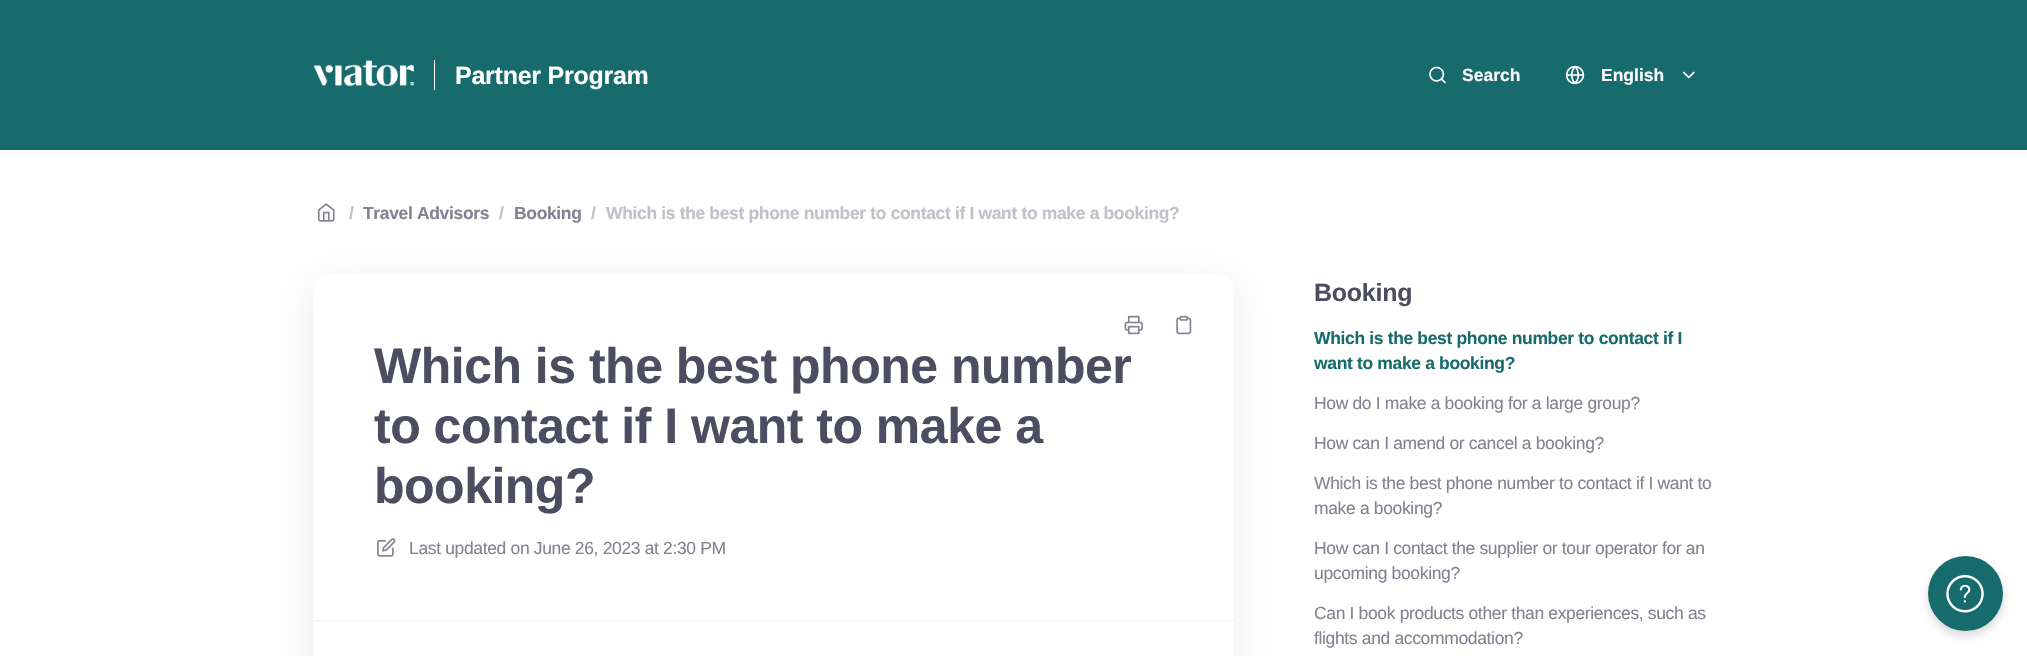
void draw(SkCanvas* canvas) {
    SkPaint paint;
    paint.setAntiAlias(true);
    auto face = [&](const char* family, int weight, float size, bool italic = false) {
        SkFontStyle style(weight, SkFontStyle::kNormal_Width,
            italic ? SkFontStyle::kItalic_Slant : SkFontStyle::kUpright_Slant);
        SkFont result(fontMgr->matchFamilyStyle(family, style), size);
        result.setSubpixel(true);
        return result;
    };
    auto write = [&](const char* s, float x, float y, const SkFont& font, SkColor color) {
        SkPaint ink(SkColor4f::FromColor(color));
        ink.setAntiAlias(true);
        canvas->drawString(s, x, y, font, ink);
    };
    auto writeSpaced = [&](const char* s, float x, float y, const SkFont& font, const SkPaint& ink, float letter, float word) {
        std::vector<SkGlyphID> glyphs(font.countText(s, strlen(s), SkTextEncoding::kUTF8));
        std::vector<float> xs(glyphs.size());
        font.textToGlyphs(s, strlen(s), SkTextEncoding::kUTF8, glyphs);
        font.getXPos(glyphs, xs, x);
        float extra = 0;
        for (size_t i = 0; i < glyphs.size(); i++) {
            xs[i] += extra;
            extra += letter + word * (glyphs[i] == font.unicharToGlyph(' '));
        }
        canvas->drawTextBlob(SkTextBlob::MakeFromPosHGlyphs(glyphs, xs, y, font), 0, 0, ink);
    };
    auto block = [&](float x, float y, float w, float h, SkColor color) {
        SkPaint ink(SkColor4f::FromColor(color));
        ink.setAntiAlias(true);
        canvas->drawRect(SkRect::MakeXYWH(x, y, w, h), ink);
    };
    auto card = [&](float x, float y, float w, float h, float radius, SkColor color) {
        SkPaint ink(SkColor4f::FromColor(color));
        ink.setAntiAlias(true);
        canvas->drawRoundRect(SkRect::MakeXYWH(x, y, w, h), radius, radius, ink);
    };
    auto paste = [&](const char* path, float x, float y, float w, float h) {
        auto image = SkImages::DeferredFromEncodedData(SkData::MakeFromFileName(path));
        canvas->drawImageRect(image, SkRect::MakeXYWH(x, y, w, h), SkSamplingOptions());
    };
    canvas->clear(SK_ColorWHITE);
    block(0, 0, 2027, 150, SkColorSetRGB(24, 107, 109));
    paste("pic1.png", 313, 60, 101, 27);
    block(434, 60, 1, 30, SK_ColorWHITE);
    auto kFont1 = face("Liberation Sans", 700, 25);
    paint.setColor(SK_ColorWHITE);
    writeSpaced("Partner Program", 455, 84, kFont1, paint, -0.25f, 0);
    paste("pic2.png", 1429, 66, 17, 18);
    auto kFont2 = face("Liberation Sans", 700, 17.5f);
    write("Search", 1462, 81, kFont2, SK_ColorWHITE);
    paste("pic3.png", 1565, 65, 20, 20);
    write("English", 1601, 81, kFont2, SK_ColorWHITE);
    paste("pic4.png", 1683, 71, 12, 8);
    paste("pic5.png", 317, 203, 18, 19);
    paint.setColor(SkColorSetRGB(193, 193, 200));
    writeSpaced("/", 349, 219, kFont2, paint, -0.35f, 0);
    paint.setColor(SkColorSetRGB(130, 130, 144));
    writeSpaced("Travel Advisors", 363, 219, kFont2, paint, -0.35f, 0);
    paint.setColor(SkColorSetRGB(193, 193, 200));
    writeSpaced("/", 499, 219, kFont2, paint, -0.35f, 0);
    paint.setColor(SkColorSetRGB(130, 130, 144));
    writeSpaced("Booking", 514, 219, kFont2, paint, -0.35f, 0);
    paint.setColor(SkColorSetRGB(193, 193, 200));
    writeSpaced("/", 591, 219, kFont2, paint, -0.35f, 0);
    writeSpaced("Which is the best phone number to contact if I want to make a booking?", 606, 219, kFont2, paint, -0.35f, 0);
    paint.setColor(SkColorSetARGB(20, 0, 0, 0));
    paint.setMaskFilter(SkMaskFilter::MakeBlur(kNormal_SkBlurStyle, 20));
    canvas->drawRoundRect(SkRect::MakeXYWH(314, 285, 920, 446), 15, 15, paint);
    paint.setMaskFilter(nullptr);
    card(314, 275, 920, 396, 15, SK_ColorWHITE);
    paste("pic6.png", 1124, 315, 19, 20);
    paste("pic7.png", 1176, 315, 16, 20);
    auto kFont3 = face("Liberation Sans", 700, 50);
    paint.setColor(SkColorSetRGB(77, 77, 97));
    writeSpaced("Which is the best phone number", 374, 383, kFont3, paint, -0.5f, 0);
    writeSpaced("to contact if I want to make a", 374, 443, kFont3, paint, -0.5f, 0);
    writeSpaced("booking?", 374, 503, kFont3, paint, -0.5f, 0);
    paste("pic8.png", 377, 538, 19, 19);
    auto kFont4 = face("Liberation Sans", 400, 17.5f);
    paint.setColor(SkColorSetRGB(130, 130, 144));
    writeSpaced("Last updated on June 26, 2023 at 2:30 PM", 409, 554, kFont4, paint, -0.35f, 0);
    block(314, 620, 920, 1, SkColorSetRGB(241, 241, 242));
    paint.setColor(SkColorSetRGB(77, 77, 97));
    writeSpaced("Booking", 1314, 301, kFont1, paint, -0.25f, 0);
    paint.setColor(SkColorSetRGB(24, 107, 109));
    writeSpaced("Which is the best phone number to contact if I", 1314, 344, kFont2, paint, -0.35f, 0);
    writeSpaced("want to make a booking?", 1314, 369, kFont2, paint, -0.35f, 0);
    paint.setColor(SkColorSetRGB(130, 130, 144));
    writeSpaced("How do I make a booking for a large group?", 1314, 409, kFont4, paint, -0.35f, 0);
    writeSpaced("How can I amend or cancel a booking?", 1314, 449, kFont4, paint, -0.35f, 0);
    writeSpaced("Which is the best phone number to contact if I want to", 1314, 489, kFont4, paint, -0.35f, 0);
    writeSpaced("make a booking?", 1314, 514, kFont4, paint, -0.35f, 0);
    writeSpaced("How can I contact the supplier or tour operator for an", 1314, 554, kFont4, paint, -0.35f, 0);
    writeSpaced("upcoming booking?", 1314, 579, kFont4, paint, -0.35f, 0);
    writeSpaced("Can I book products other than experiences, such as", 1314, 619, kFont4, paint, -0.35f, 0);
    writeSpaced("flights and accommodation?", 1314, 644, kFont4, paint, -0.35f, 0);
    paint.setColor(SkColorSetARGB(38, 0, 0, 0));
    paint.setMaskFilter(SkMaskFilter::MakeBlur(kNormal_SkBlurStyle, 5));
    canvas->drawRoundRect(SkRect::MakeXYWH(1928, 561, 75, 75), 37.5f, 37.5f, paint);
    paint.setMaskFilter(nullptr);
    paint.setColor(SkColorSetRGB(24, 107, 109));
    canvas->drawCircle(1965.5f, 593.5f, 37.5f, paint);
    paste("pic9.png", 1946, 575, 38, 38);
}
